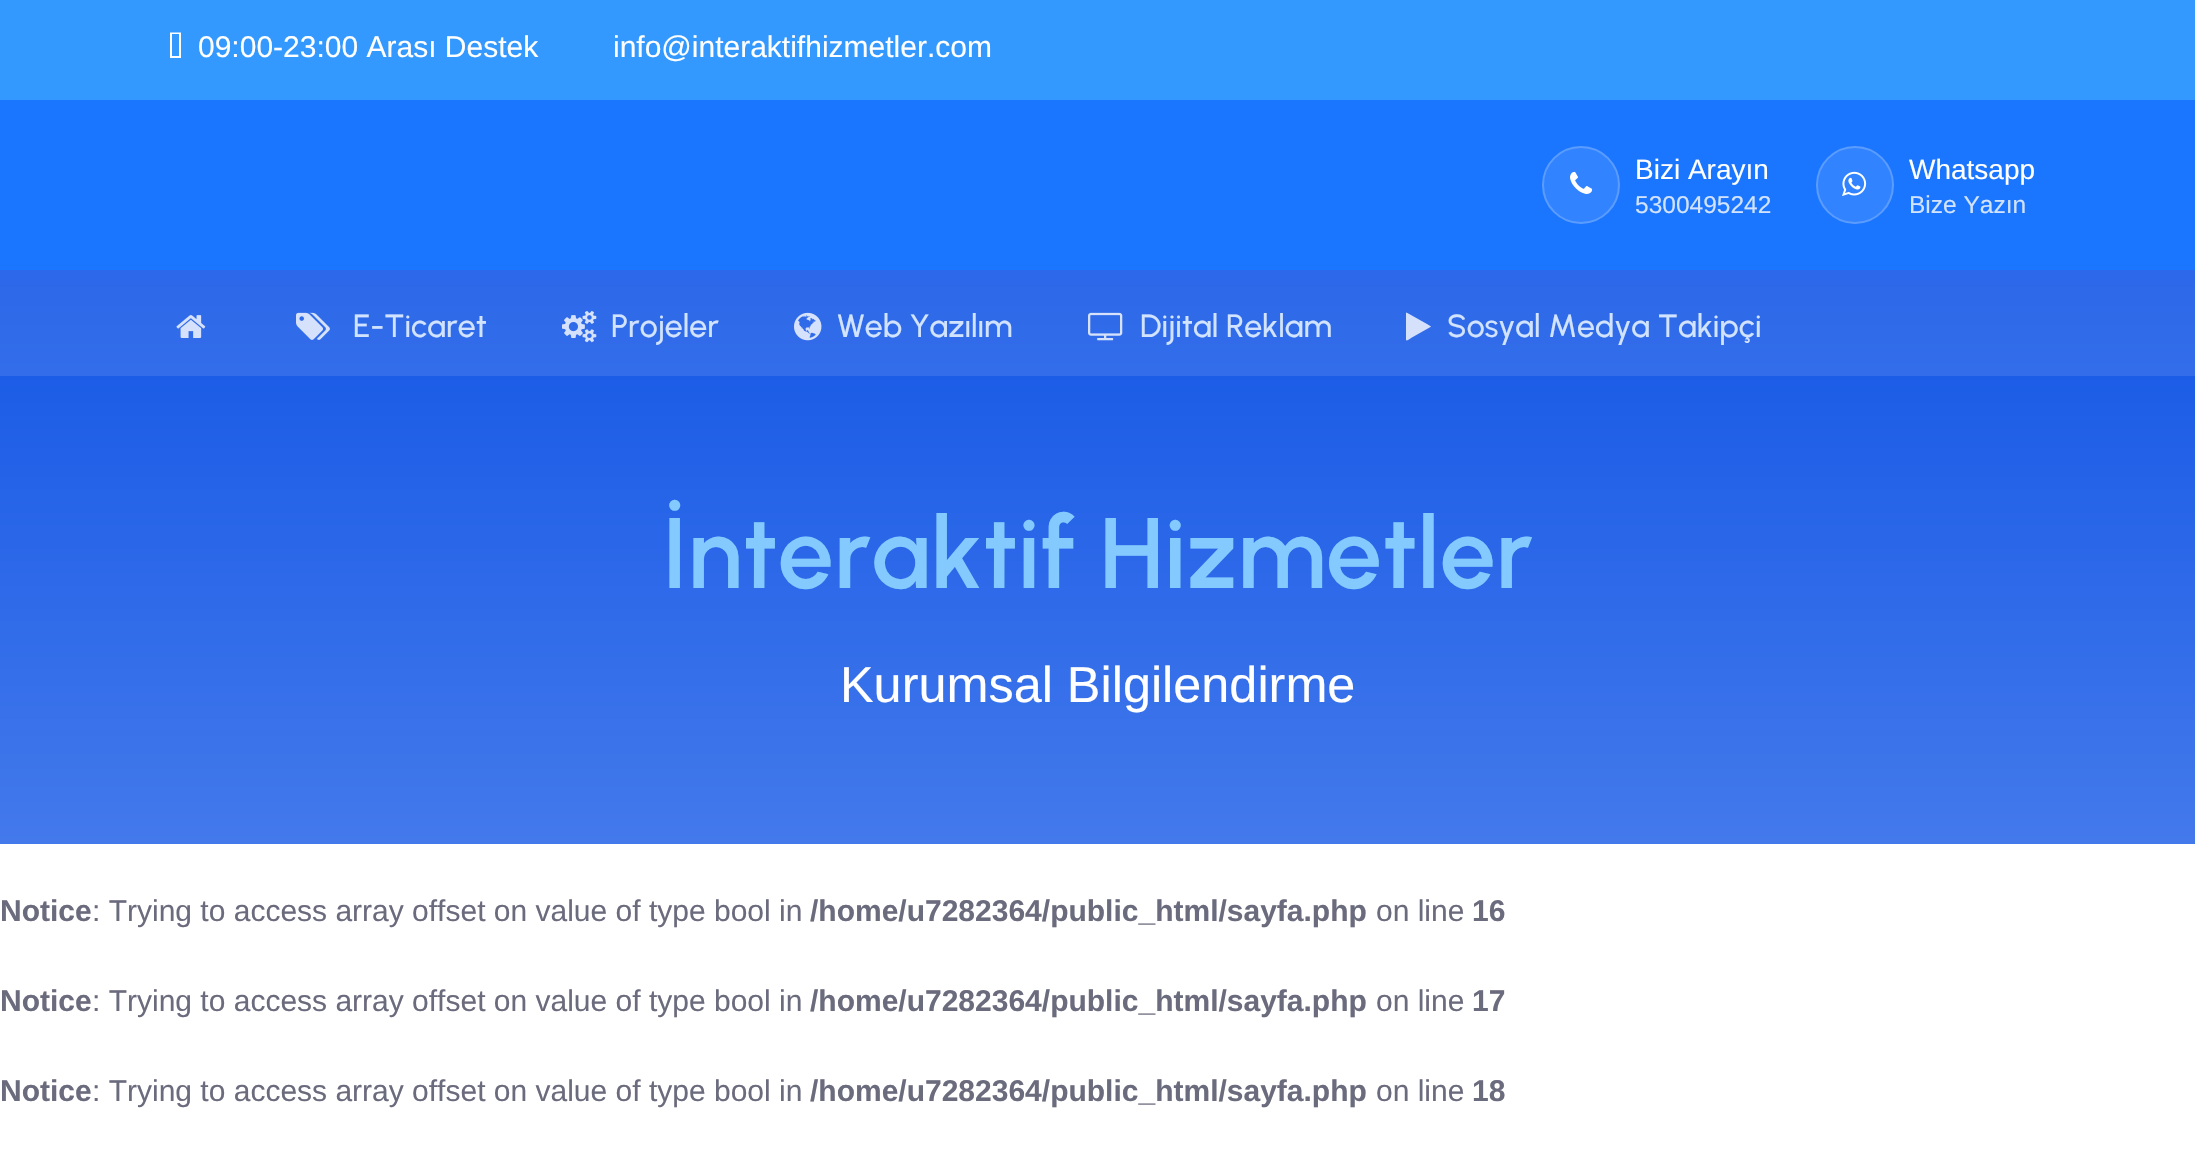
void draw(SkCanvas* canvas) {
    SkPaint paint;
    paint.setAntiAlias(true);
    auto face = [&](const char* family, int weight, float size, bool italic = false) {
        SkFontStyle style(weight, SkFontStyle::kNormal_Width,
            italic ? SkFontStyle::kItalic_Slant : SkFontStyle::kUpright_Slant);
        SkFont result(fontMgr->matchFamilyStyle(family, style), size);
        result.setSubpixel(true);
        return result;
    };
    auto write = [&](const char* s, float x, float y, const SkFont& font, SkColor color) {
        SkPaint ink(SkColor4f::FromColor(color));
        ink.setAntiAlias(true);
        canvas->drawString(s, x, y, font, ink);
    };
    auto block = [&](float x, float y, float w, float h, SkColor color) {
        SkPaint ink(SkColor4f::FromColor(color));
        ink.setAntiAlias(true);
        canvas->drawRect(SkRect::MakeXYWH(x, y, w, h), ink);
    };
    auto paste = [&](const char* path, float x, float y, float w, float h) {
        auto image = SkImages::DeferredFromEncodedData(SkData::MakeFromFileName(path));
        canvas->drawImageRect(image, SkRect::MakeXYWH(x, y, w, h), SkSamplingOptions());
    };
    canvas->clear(SK_ColorWHITE);
    block(0, 270, 2195, 8, SkColorSetRGB(44, 104, 233));
    block(0, 0, 2195, 100, SkColorSetRGB(51, 153, 255));
    paint.setColor(SK_ColorWHITE);
    canvas->drawPath(SkPathBuilder().moveTo(172, 56).lineTo(179, 56).lineTo(179, 34).lineTo(172, 34).close().moveTo(170, 58).lineTo(170, 32.5f).lineTo(181, 32.5f).lineTo(181, 58).close().detach(), paint);
    auto kFont1 = face("Liberation Sans", 400, 30);
    write("09:00-23:00 Arası Destek", 198, 57, kFont1, SK_ColorWHITE);
    write("info@interaktifhizmetler.com", 613, 57, kFont1, SK_ColorWHITE);
    block(0, 100, 2195, 170, SkColorSetRGB(26, 117, 255));
    paint.setColor(SkColorSetRGB(49, 131, 255));
    canvas->drawCircle(1581, 185, 39, paint);
    paint.setStyle(SkPaint::kStroke_Style);
    paint.setStrokeWidth(2);
    paint.setColor(SkColorSetARGB(51, 255, 255, 255));
    canvas->drawCircle(1581, 185, 38, paint);
    paste("pic1.png", 1570, 171, 23, 23);
    auto kFont2 = face("Liberation Sans", 400, 28);
    write("Bizi Arayın", 1635, 179, kFont2, SK_ColorWHITE);
    auto kFont3 = face("Liberation Sans", 400, 24.5f);
    write("5300495242", 1635, 213, kFont3, SkColorSetRGB(209, 227, 255));
    paint.setStyle(SkPaint::kFill_Style);
    paint.setColor(SkColorSetRGB(49, 131, 255));
    canvas->drawCircle(1855, 185, 39, paint);
    paint.setStyle(SkPaint::kStroke_Style);
    paint.setColor(SkColorSetARGB(51, 255, 255, 255));
    canvas->drawCircle(1855, 185, 38, paint);
    paste("pic2.png", 1842, 171, 25, 25);
    write("Whatsapp", 1909, 179, kFont2, SK_ColorWHITE);
    write("Bize Yazın", 1909, 213, kFont3, SkColorSetRGB(209, 227, 255));
    paint.setStyle(SkPaint::kFill_Style);
    {
        const SkColor colors[] = {SkColorSetRGB(44, 104, 233), SkColorSetRGB(86, 134, 237)};
        const float stops[] = {0, 1};
        const SkPoint ends[] = {{1098, 278}, {1098, 844}};
        paint.setShader(SkGradientShader::MakeLinear(ends, colors, stops, 2, SkTileMode::kClamp));
        paint.setAlpha(255);
    }
    canvas->drawRect(SkRect::MakeXYWH(0, 278, 2195, 98), paint);
    paste("pic3.png", 176, 315, 30, 23);
    paste("pic4.png", 296, 312, 34, 28);
    auto kFont4 = face("Urbanist", 500, 32);
    write("E-Ticaret", 353, 337, kFont4, SkColorSetRGB(209, 227, 255));
    paste("pic5.png", 562, 310, 35, 33);
    write("Projeler", 611, 337, kFont4, SkColorSetRGB(209, 227, 255));
    paste("pic6.png", 794, 312, 28, 29);
    write("Web Yazılım", 837, 337, kFont4, SkColorSetRGB(209, 227, 255));
    paste("pic7.png", 1088, 312, 35, 29);
    write("Dijital Reklam", 1140, 337, kFont4, SkColorSetRGB(209, 227, 255));
    paint.setShader(nullptr);
    paint.setColor(SkColorSetRGB(213, 225, 251));
    canvas->drawPath(SkPathBuilder().moveTo(1430.5f, 327).lineTo(1411, 338).cubicTo(1410.5f, 338.5f, 1407, 341.5f, 1406, 340).lineTo(1406, 313).lineTo(1406.5f, 312.5f).lineTo(1427, 324).lineTo(1431, 326.5f).close().detach(), paint);
    write("Sosyal Medya Takipçi", 1447, 337, kFont4, SkColorSetRGB(209, 227, 255));
    {
        const SkColor colors[] = {SkColorSetRGB(20, 87, 230), SkColorSetRGB(67, 121, 235)};
        const float stops[] = {0, 1};
        const SkPoint ends[] = {{1098, 278}, {1098, 844}};
        paint.setShader(SkGradientShader::MakeLinear(ends, colors, stops, 2, SkTileMode::kClamp));
        paint.setAlpha(255);
    }
    canvas->drawRect(SkRect::MakeXYWH(0, 376, 2195, 468), paint);
    auto kFont5 = face("Urbanist", 600, 100);
    write("İnteraktif Hizmetler", 662, 588, kFont5, SkColorSetRGB(133, 202, 255));
    auto kFont6 = face("Liberation Sans", 400, 50.4f);
    write("Kurumsal Bilgilendirme", 840, 702, kFont6, SK_ColorWHITE);
    auto kFont7 = face("Liberation Sans", 700, 30);
    write("Notice", 0, 921, kFont7, SkColorSetRGB(107, 107, 126));
    write(": Trying to access array offset on value of type bool in", 92, 921, kFont1, SkColorSetRGB(107, 107, 126));
    write("/home/u7282364/public_html/sayfa.php", 810, 921, kFont7, SkColorSetRGB(107, 107, 126));
    write("on line", 1376, 921, kFont1, SkColorSetRGB(107, 107, 126));
    write("16", 1472, 921, kFont7, SkColorSetRGB(107, 107, 126));
    write("Notice", 0, 1011, kFont7, SkColorSetRGB(107, 107, 126));
    write(": Trying to access array offset on value of type bool in", 92, 1011, kFont1, SkColorSetRGB(107, 107, 126));
    write("/home/u7282364/public_html/sayfa.php", 810, 1011, kFont7, SkColorSetRGB(107, 107, 126));
    write("on line", 1376, 1011, kFont1, SkColorSetRGB(107, 107, 126));
    write("17", 1472, 1011, kFont7, SkColorSetRGB(107, 107, 126));
    write("Notice", 0, 1101, kFont7, SkColorSetRGB(107, 107, 126));
    write(": Trying to access array offset on value of type bool in", 92, 1101, kFont1, SkColorSetRGB(107, 107, 126));
    write("/home/u7282364/public_html/sayfa.php", 810, 1101, kFont7, SkColorSetRGB(107, 107, 126));
    write("on line", 1376, 1101, kFont1, SkColorSetRGB(107, 107, 126));
    write("18", 1472, 1101, kFont7, SkColorSetRGB(107, 107, 126));
}
